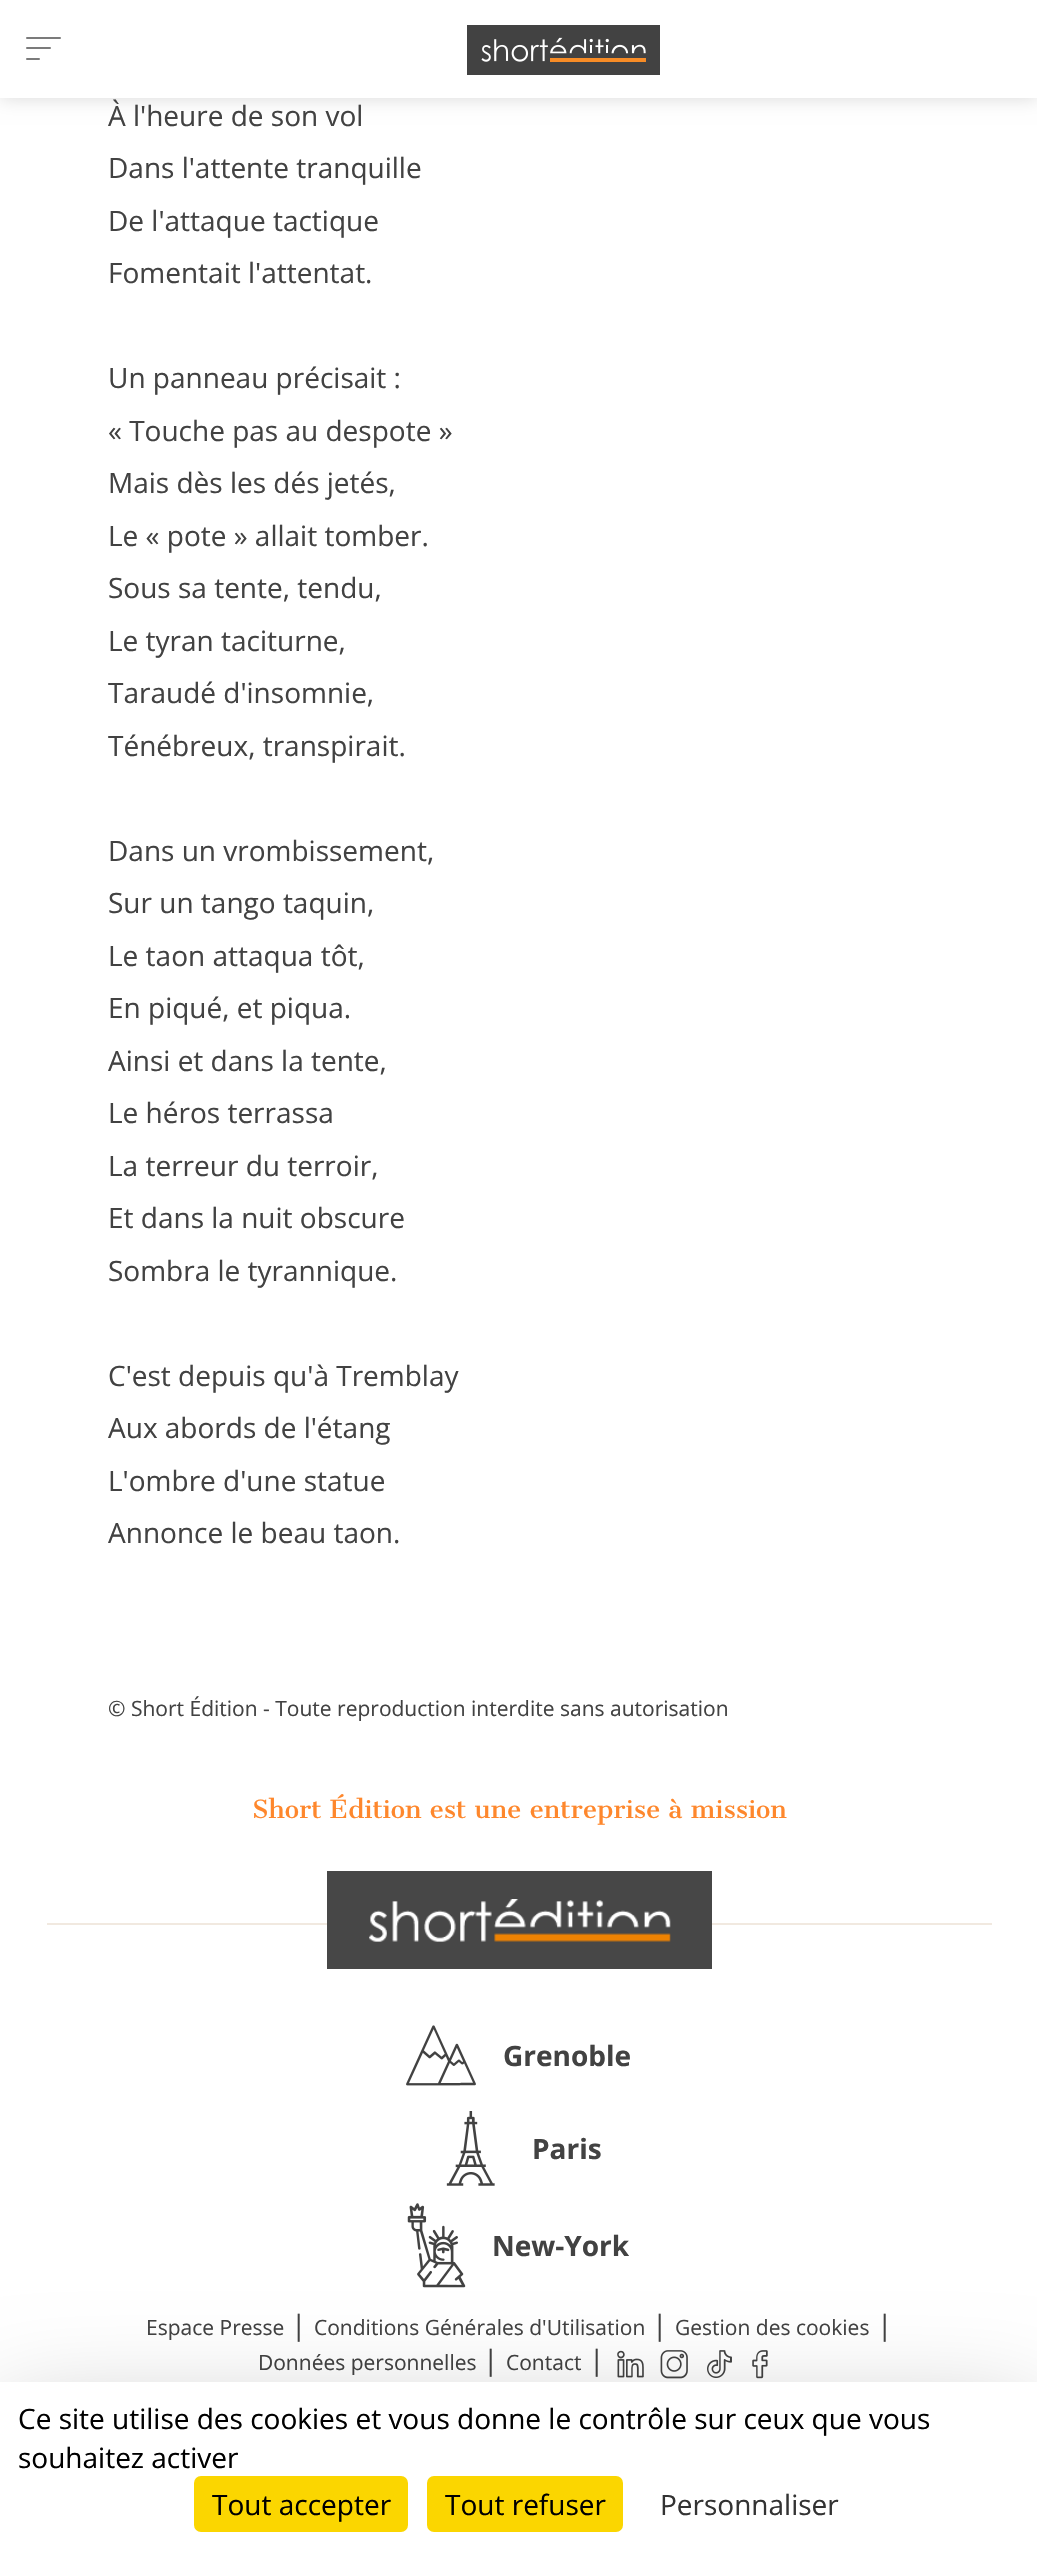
void draw(SkCanvas* canvas) {
    SkPaint paint;
    paint.setAntiAlias(true);
    auto face = [&](const char* family, int weight, float size, bool italic = false) {
        SkFontStyle style(weight, SkFontStyle::kNormal_Width,
            italic ? SkFontStyle::kItalic_Slant : SkFontStyle::kUpright_Slant);
        SkFont result(fontMgr->matchFamilyStyle(family, style), size);
        result.setSubpixel(true);
        return result;
    };
    auto write = [&](const char* s, float x, float y, const SkFont& font, SkColor color) {
        SkPaint ink(SkColor4f::FromColor(color));
        ink.setAntiAlias(true);
        canvas->drawString(s, x, y, font, ink);
    };
    auto block = [&](float x, float y, float w, float h, SkColor color) {
        SkPaint ink(SkColor4f::FromColor(color));
        ink.setAntiAlias(true);
        canvas->drawRect(SkRect::MakeXYWH(x, y, w, h), ink);
    };
    auto card = [&](float x, float y, float w, float h, float radius, SkColor color) {
        SkPaint ink(SkColor4f::FromColor(color));
        ink.setAntiAlias(true);
        canvas->drawRoundRect(SkRect::MakeXYWH(x, y, w, h), radius, radius, ink);
    };
    auto paste = [&](const char* path, float x, float y, float w, float h) {
        auto image = SkImages::DeferredFromEncodedData(SkData::MakeFromFileName(path));
        canvas->drawImageRect(image, SkRect::MakeXYWH(x, y, w, h), SkSamplingOptions());
    };
    canvas->clear(SK_ColorWHITE);
    paint.setColor(SkColorSetARGB(38, 0, 0, 0));
    paint.setMaskFilter(SkMaskFilter::MakeBlur(kNormal_SkBlurStyle, 9));
    canvas->drawRect(SkRect::MakeXYWH(0, 0, 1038, 98), paint);
    paint.setMaskFilter(nullptr);
    block(0, 0, 1037, 98, SK_ColorWHITE);
    card(26, 37, 35, 2, 1, SkColorSetRGB(123, 123, 123));
    card(26, 47, 25, 2, 1, SkColorSetRGB(123, 123, 123));
    card(26, 58, 14, 2, 1, SkColorSetRGB(123, 123, 123));
    paste("pic1.png", 467, 25, 193, 50);
    auto kFont1 = face("Open Sans", 400, 28);
    write("À l'heure de son vol", 108, 126, kFont1, SkColorSetRGB(66, 66, 66));
    write("Dans l'attente tranquille", 108, 178, kFont1, SkColorSetRGB(66, 66, 66));
    write("De l'attaque tactique", 108, 231, kFont1, SkColorSetRGB(66, 66, 66));
    write("Fomentait l'attentat.", 108, 283, kFont1, SkColorSetRGB(66, 66, 66));
    write("Un panneau précisait :", 108, 388, kFont1, SkColorSetRGB(66, 66, 66));
    write("« Touche pas au despote »", 108, 441, kFont1, SkColorSetRGB(66, 66, 66));
    write("Mais dès les dés jetés,", 108, 493, kFont1, SkColorSetRGB(66, 66, 66));
    write("Le « pote » allait tomber.", 108, 546, kFont1, SkColorSetRGB(66, 66, 66));
    write("Sous sa tente, tendu,", 108, 598, kFont1, SkColorSetRGB(66, 66, 66));
    write("Le tyran taciturne,", 108, 651, kFont1, SkColorSetRGB(66, 66, 66));
    write("Taraudé d'insomnie,", 108, 703, kFont1, SkColorSetRGB(66, 66, 66));
    write("Ténébreux, transpirait.", 108, 756, kFont1, SkColorSetRGB(66, 66, 66));
    write("Dans un vrombissement,", 108, 861, kFont1, SkColorSetRGB(66, 66, 66));
    write("Sur un tango taquin,", 108, 913, kFont1, SkColorSetRGB(66, 66, 66));
    write("Le taon attaqua tôt,", 108, 966, kFont1, SkColorSetRGB(66, 66, 66));
    write("En piqué, et piqua.", 108, 1018, kFont1, SkColorSetRGB(66, 66, 66));
    write("Ainsi et dans la tente,", 108, 1071, kFont1, SkColorSetRGB(66, 66, 66));
    write("Le héros terrassa", 108, 1123, kFont1, SkColorSetRGB(66, 66, 66));
    write("La terreur du terroir,", 108, 1176, kFont1, SkColorSetRGB(66, 66, 66));
    write("Et dans la nuit obscure", 108, 1228, kFont1, SkColorSetRGB(66, 66, 66));
    write("Sombra le tyrannique.", 108, 1281, kFont1, SkColorSetRGB(66, 66, 66));
    write("C'est depuis qu'à Tremblay", 108, 1386, kFont1, SkColorSetRGB(66, 66, 66));
    write("Aux abords de l'étang", 108, 1438, kFont1, SkColorSetRGB(66, 66, 66));
    write("L'ombre d'une statue", 108, 1491, kFont1, SkColorSetRGB(66, 66, 66));
    write("Annonce le beau taon.", 108, 1543, kFont1, SkColorSetRGB(66, 66, 66));
    auto kFont2 = face("Open Sans", 400, 21);
    write("© Short Édition - Toute reproduction interdite sans autorisation", 108, 1716, kFont2, SkColorSetRGB(66, 66, 66));
    auto kFont3 = face("Cantata One", 400, 24.5f);
    write("Short Édition est une entreprise à mission", 252, 1818, kFont3, SkColorSetRGB(254, 135, 44));
    block(47, 1923, 945, 2, SkColorSetRGB(241, 233, 224));
    block(327, 1871, 385, 98, SkColorSetRGB(71, 71, 71));
    paste("pic2.png", 369, 1899, 302, 43);
    paste("pic3.png", 406, 2025, 70, 61);
    auto kFont4 = face("Open Sans", 700, 28);
    write("Grenoble", 503, 2066, kFont4, SkColorSetRGB(66, 66, 66));
    paste("pic4.png", 446, 2111, 49, 75);
    write("Paris", 532, 2159, kFont4, SkColorSetRGB(66, 66, 66));
    paste("pic5.png", 407, 2203, 59, 85);
    write("New-York", 492, 2256, kFont4, SkColorSetRGB(66, 66, 66));
    write("Espace Presse", 146, 2335, kFont2, SkColorSetRGB(66, 66, 66));
    write("|", 291, 2335, kFont1, SkColorSetRGB(66, 66, 66));
    write("Conditions Générales d'Utilisation", 314, 2335, kFont2, SkColorSetRGB(66, 66, 66));
    write("|", 652, 2335, kFont1, SkColorSetRGB(66, 66, 66));
    write("Gestion des cookies", 675, 2335, kFont2, SkColorSetRGB(66, 66, 66));
    write("|", 877, 2335, kFont1, SkColorSetRGB(66, 66, 66));
    write("Données personnelles", 258, 2370, kFont2, SkColorSetRGB(66, 66, 66));
    write("|", 483, 2370, kFont1, SkColorSetRGB(66, 66, 66));
    write("Contact", 506, 2370, kFont2, SkColorSetRGB(66, 66, 66));
    write("|", 589, 2370, kFont1, SkColorSetRGB(66, 66, 66));
    paste("pic6.png", 617, 2350, 27, 28);
    paste("pic7.png", 660, 2350, 28, 29);
    paste("pic8.png", 707, 2350, 25, 28);
    paste("pic9.png", 752, 2350, 16, 29);
    paint.setColor(SkColorSetARGB(64, 0, 0, 0));
    paint.setMaskFilter(SkMaskFilter::MakeBlur(kNormal_SkBlurStyle, 52.5f));
    canvas->drawRect(SkRect::MakeXYWH(0, 2417, 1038, 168), paint);
    paint.setMaskFilter(nullptr);
    block(0, 2382, 1037, 167, SK_ColorWHITE);
    write("Ce site utilise des cookies et vous donne le contrôle sur ceux que vous", 18, 2429, kFont1, SK_ColorBLACK);
    write("souhaitez activer", 18, 2468, kFont1, SK_ColorBLACK);
    card(194, 2476, 214, 56, 7, SkColorSetRGB(251, 214, 0));
    write("Tout accepter", 212, 2515, kFont1, SK_ColorBLACK);
    card(427, 2476, 196, 56, 7, SkColorSetRGB(251, 214, 0));
    write("Tout refuser", 445, 2515, kFont1, SK_ColorBLACK);
    write("Personnaliser", 660, 2515, kFont1, SkColorSetRGB(51, 51, 51));
}
